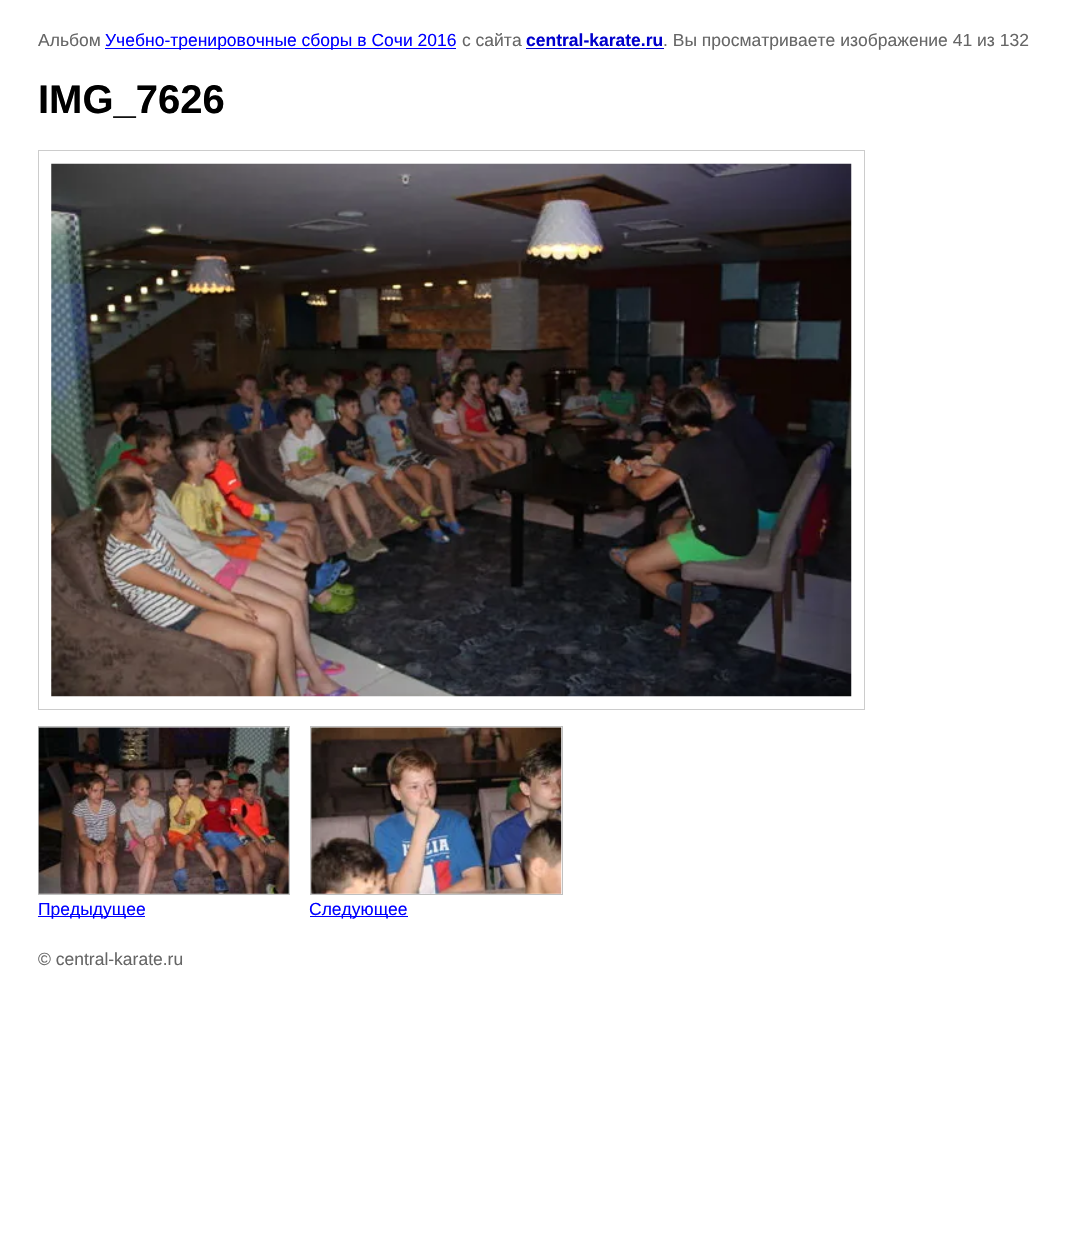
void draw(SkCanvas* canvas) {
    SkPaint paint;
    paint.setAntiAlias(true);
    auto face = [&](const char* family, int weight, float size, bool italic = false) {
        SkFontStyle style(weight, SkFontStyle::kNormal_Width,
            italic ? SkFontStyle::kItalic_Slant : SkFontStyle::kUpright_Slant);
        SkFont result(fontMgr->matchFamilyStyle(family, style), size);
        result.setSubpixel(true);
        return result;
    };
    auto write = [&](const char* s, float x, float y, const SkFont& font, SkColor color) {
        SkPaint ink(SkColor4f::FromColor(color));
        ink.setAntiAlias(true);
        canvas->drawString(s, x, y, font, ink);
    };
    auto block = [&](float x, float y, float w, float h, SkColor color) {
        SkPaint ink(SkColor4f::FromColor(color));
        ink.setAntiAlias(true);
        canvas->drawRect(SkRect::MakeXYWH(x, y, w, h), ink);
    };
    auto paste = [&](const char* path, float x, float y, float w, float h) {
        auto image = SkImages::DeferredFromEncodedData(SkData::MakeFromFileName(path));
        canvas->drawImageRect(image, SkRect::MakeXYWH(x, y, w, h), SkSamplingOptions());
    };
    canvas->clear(SK_ColorWHITE);
    auto kFont1 = face("Liberation Sans", 400, 17.5f);
    write("Альбом", 38, 46, kFont1, SkColorSetRGB(102, 102, 102));
    block(105, 48, 351, 1, SkColorSetRGB(0, 0, 255));
    write("Учебно-тренировочные сборы в Сочи 2016", 105, 46, kFont1, SkColorSetRGB(0, 0, 255));
    write("с сайта", 462, 46, kFont1, SkColorSetRGB(102, 102, 102));
    auto kFont2 = face("Liberation Sans", 700, 17.5f);
    write("central-karate.ru", 526, 46, kFont2, SkColorSetRGB(0, 0, 204));
    block(526, 48, 138, 1, SkColorSetRGB(0, 0, 204));
    write(". Вы просматриваете изображение 41 из 132", 663, 46, kFont1, SkColorSetRGB(102, 102, 102));
    auto kFont3 = face("Liberation Sans", 700, 40);
    write("IMG_7626", 38, 113, kFont3, SK_ColorBLACK);
    paint.setStyle(SkPaint::kStroke_Style);
    paint.setStrokeWidth(1);
    paint.setColor(SkColorSetRGB(204, 204, 204));
    canvas->drawRect(SkRect::MakeXYWH(38.5f, 150.5f, 826, 559), paint);
    paste("pic1.png", 51, 163, 801, 534);
    paint.setColor(SkColorSetRGB(192, 192, 192));
    canvas->drawRect(SkRect::MakeXYWH(38.5f, 726.5f, 251, 168), paint);
    paste("pic2.png", 38, 727, 251, 167);
    block(38, 916, 107, 1, SkColorSetRGB(0, 0, 255));
    write("Предыдущее", 38, 915, kFont1, SkColorSetRGB(0, 0, 255));
    canvas->drawRect(SkRect::MakeXYWH(310.5f, 726.5f, 252, 168), paint);
    paste("pic3.png", 311, 727, 251, 167);
    block(310, 916, 98, 1, SkColorSetRGB(0, 0, 255));
    write("Следующее", 309, 915, kFont1, SkColorSetRGB(0, 0, 255));
    write("© central-karate.ru", 38, 965, kFont1, SkColorSetRGB(102, 102, 102));
}
